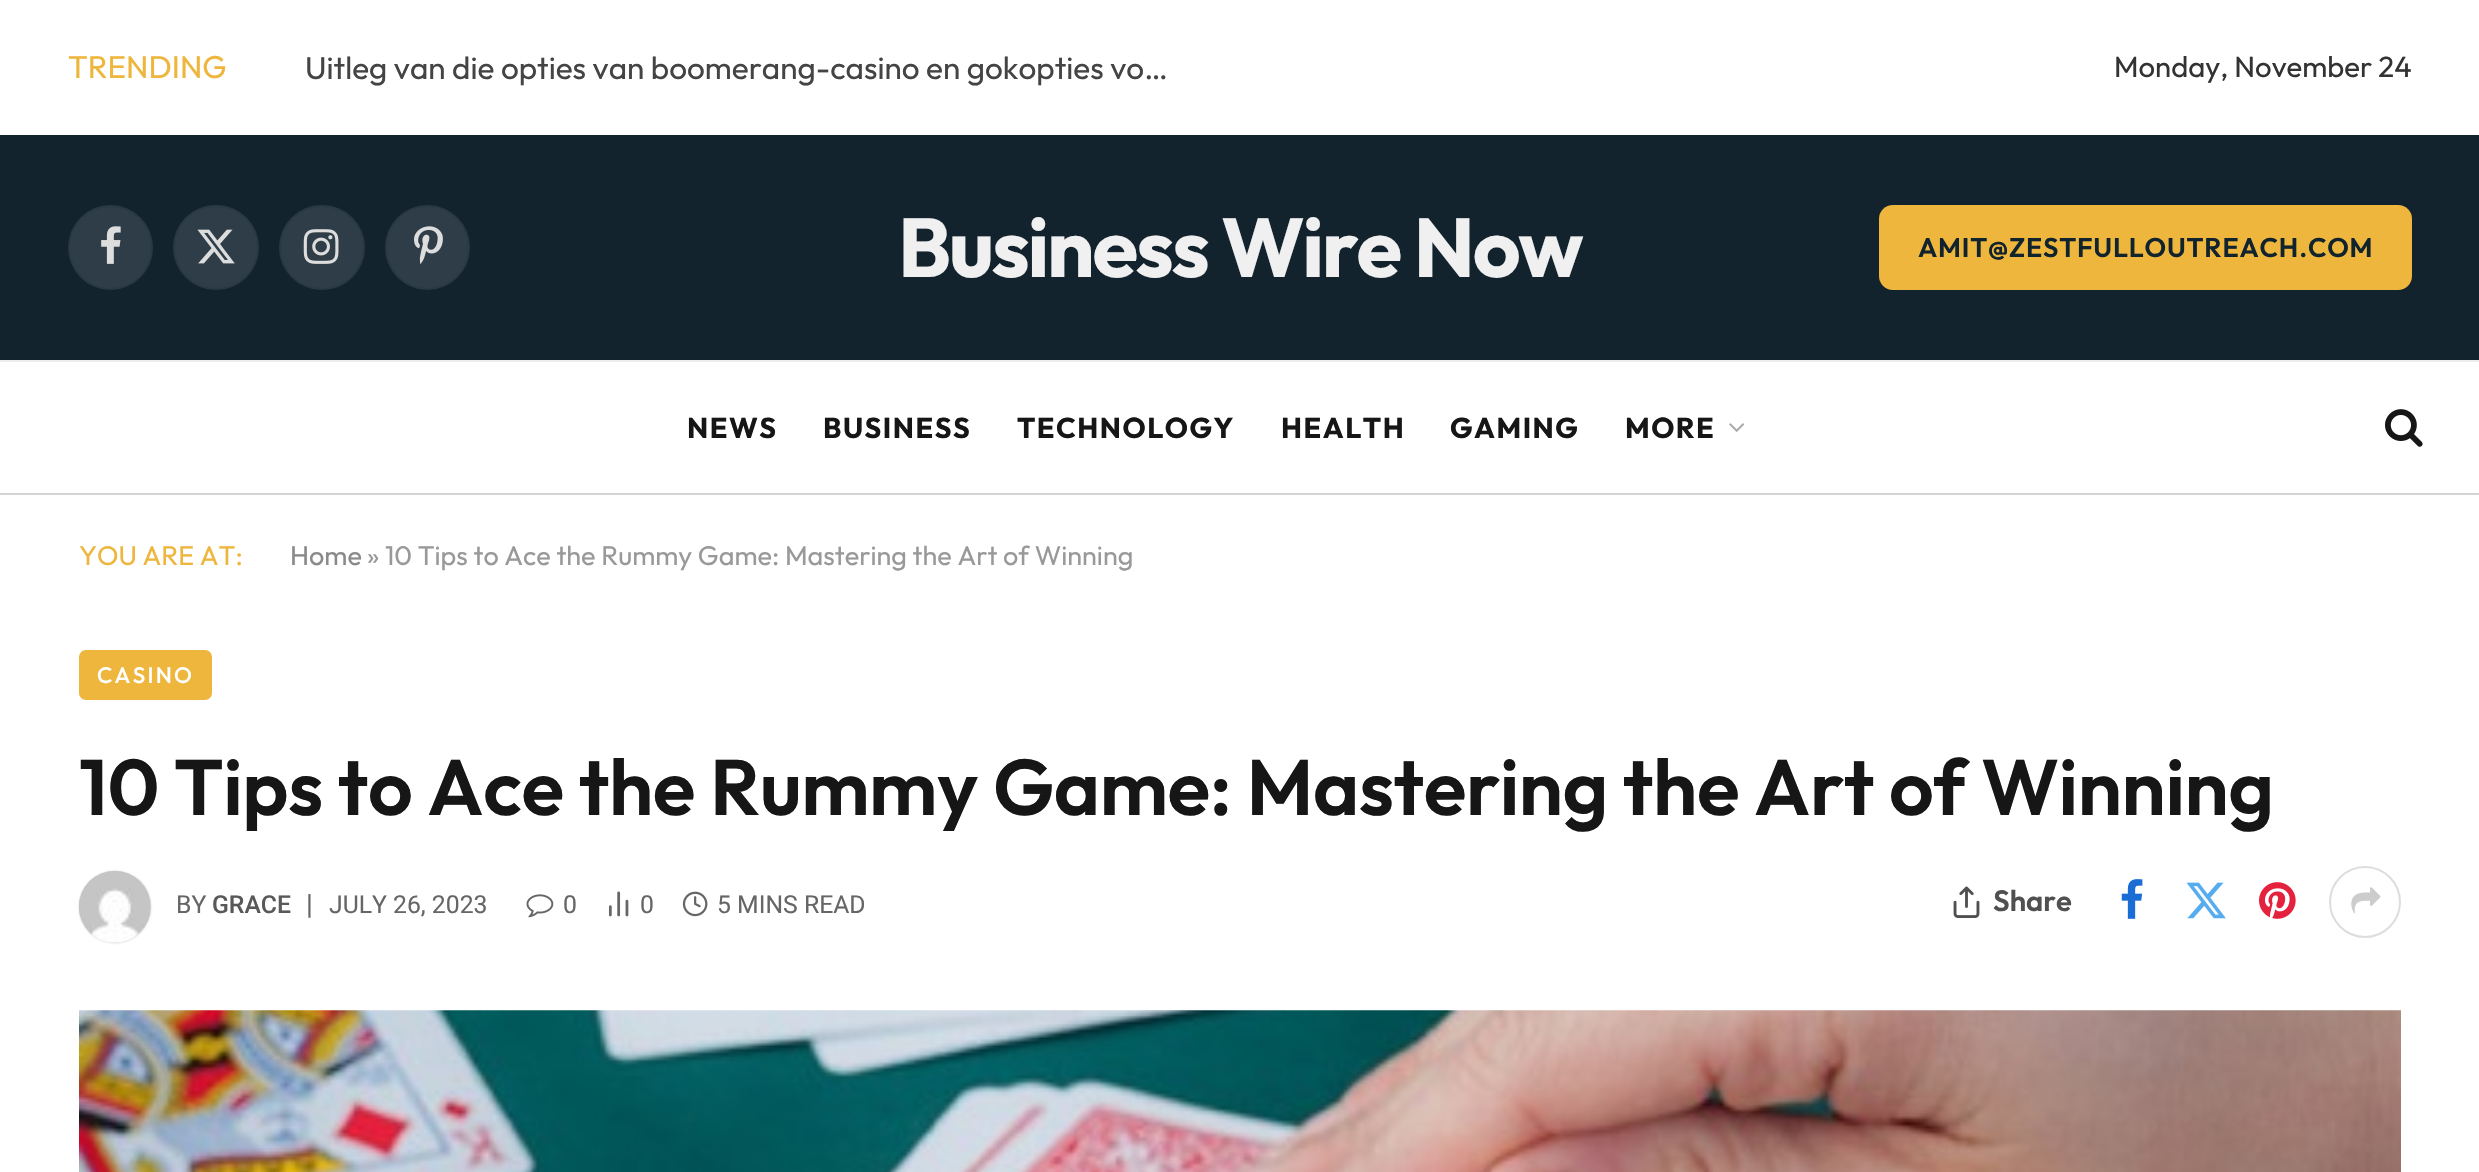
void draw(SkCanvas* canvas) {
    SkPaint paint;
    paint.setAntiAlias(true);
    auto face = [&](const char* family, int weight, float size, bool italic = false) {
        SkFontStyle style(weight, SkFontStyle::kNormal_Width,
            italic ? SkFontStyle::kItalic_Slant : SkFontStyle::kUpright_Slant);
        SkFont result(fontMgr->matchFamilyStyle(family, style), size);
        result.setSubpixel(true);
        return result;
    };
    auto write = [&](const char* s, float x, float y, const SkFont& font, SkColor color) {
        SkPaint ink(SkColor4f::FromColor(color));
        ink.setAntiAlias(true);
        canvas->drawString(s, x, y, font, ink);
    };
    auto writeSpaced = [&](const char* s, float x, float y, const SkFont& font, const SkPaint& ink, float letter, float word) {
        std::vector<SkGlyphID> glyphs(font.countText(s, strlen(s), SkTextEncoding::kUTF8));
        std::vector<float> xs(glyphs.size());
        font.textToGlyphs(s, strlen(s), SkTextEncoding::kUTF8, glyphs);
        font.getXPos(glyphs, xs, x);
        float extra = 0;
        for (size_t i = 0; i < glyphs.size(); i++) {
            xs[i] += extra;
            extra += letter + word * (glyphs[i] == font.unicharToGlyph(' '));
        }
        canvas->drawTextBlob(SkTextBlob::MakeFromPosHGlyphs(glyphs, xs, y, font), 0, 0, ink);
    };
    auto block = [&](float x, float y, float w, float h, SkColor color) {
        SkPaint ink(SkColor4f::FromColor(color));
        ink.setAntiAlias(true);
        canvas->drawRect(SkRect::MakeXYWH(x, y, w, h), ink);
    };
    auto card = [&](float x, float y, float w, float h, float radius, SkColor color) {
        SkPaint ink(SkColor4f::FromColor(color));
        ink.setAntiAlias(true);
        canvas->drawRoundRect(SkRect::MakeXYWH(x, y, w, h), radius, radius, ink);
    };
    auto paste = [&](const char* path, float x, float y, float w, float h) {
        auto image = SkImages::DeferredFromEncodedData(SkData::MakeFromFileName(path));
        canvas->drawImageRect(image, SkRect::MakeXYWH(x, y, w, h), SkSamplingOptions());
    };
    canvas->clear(SK_ColorWHITE);
    auto kFont1 = face("Outfit", 400, 31.5f);
    write("TRENDING", 68, 78, kFont1, SkColorSetRGB(238, 182, 61));
    write("Uitleg van die opties van boomerang-casino en gokopties vo…", 305, 79, kFont1, SkColorSetRGB(68, 68, 68));
    auto kFont2 = face("Outfit", 400, 29.25f);
    write("Monday, November 24", 2114, 77, kFont2, SkColorSetRGB(51, 51, 51));
    block(0, 135, 2479, 225, SkColorSetRGB(18, 35, 46));
    paint.setColor(SkColorSetRGB(46, 61, 71));
    canvas->drawCircle(110.5f, 247.5f, 42.5f, paint);
    paint.setStyle(SkPaint::kStroke_Style);
    paint.setStrokeWidth(2);
    paint.setColor(SkColorSetARGB(23, 0, 0, 0));
    canvas->drawCircle(110.5f, 247.5f, 41.5f, paint);
    paste("pic1.png", 101, 226, 20, 38);
    card(173, 205, 86, 85, 42.5f, SkColorSetRGB(46, 61, 71));
    canvas->drawRoundRect(SkRect::MakeXYWH(174, 206, 84, 83), 41.5f, 41.5f, paint);
    paste("pic2.png", 197, 229, 38, 35);
    card(279, 205, 86, 85, 42.5f, SkColorSetRGB(46, 61, 71));
    canvas->drawRoundRect(SkRect::MakeXYWH(280, 206, 84, 83), 41.5f, 41.5f, paint);
    paste("pic3.png", 303, 229, 36, 35);
    paint.setStyle(SkPaint::kFill_Style);
    paint.setColor(SkColorSetRGB(46, 61, 71));
    canvas->drawCircle(427.5f, 247.5f, 42.5f, paint);
    paint.setStyle(SkPaint::kStroke_Style);
    paint.setColor(SkColorSetARGB(23, 0, 0, 0));
    canvas->drawCircle(427.5f, 247.5f, 41.5f, paint);
    paste("pic4.png", 414, 226, 29, 38);
    auto kFont3 = face("Outfit", 700, 83.25f);
    paint.setStyle(SkPaint::kFill_Style);
    paint.setColor(SkColorSetRGB(240, 240, 240));
    writeSpaced("Business Wire Now", 898, 277, kFont3, paint, -2.25f, 0);
    card(1879, 205, 533, 85, 14, SkColorSetRGB(238, 182, 61));
    auto kFont4 = face("Outfit", 600, 27);
    paint.setColor(SkColorSetRGB(17, 36, 45));
    writeSpaced("AMIT@ZESTFULLOUTREACH.COM", 1918, 257, kFont4, paint, 0.8f, 0);
    block(0, 360, 2479, 2, SkColorSetRGB(237, 237, 237));
    block(0, 493, 2479, 2, SkColorSetRGB(211, 211, 211));
    auto kFont5 = face("Outfit", 700, 28.75f);
    paint.setColor(SkColorSetRGB(22, 22, 22));
    writeSpaced("NEWS", 687, 438, kFont5, paint, 1.5f, 0);
    writeSpaced("BUSINESS", 823, 438, kFont5, paint, 1.5f, 0);
    writeSpaced("TECHNOLOGY", 1017, 438, kFont5, paint, 1.5f, 0);
    writeSpaced("HEALTH", 1281, 438, kFont5, paint, 1.5f, 0);
    writeSpaced("GAMING", 1450, 438, kFont5, paint, 1.5f, 0);
    writeSpaced("MORE", 1625, 438, kFont5, paint, 1.5f, 0);
    paste("pic5.png", 1729, 423, 16, 9);
    paste("pic6.png", 2385, 409, 38, 38);
    auto kFont6 = face("Outfit", 400, 27);
    write("YOU ARE AT:", 79, 565, kFont6, SkColorSetRGB(238, 182, 61));
    write("Home", 290, 565, kFont6, SkColorSetRGB(138, 138, 138));
    write("» 10 Tips to Ace the Rummy Game: Mastering the Art of Winning", 367, 565, kFont6, SkColorSetRGB(153, 153, 153));
    card(79, 650, 133, 50, 7, SkColorSetRGB(238, 182, 61));
    auto kFont7 = face("Outfit", 500, 22.5f);
    paint.setColor(SK_ColorWHITE);
    writeSpaced("CASINO", 97, 683, kFont7, paint, 2.25f, 0);
    auto kFont8 = face("Outfit", 600, 78.75f);
    paint.setColor(SkColorSetRGB(22, 22, 22));
    writeSpaced("10 Tips to Ace the Rummy Game: Mastering the Art of Winning", 79, 815, kFont8, paint, -0.4f, 0);
    paint.setColor(SkColorSetARGB(51, 0, 0, 0));
    paint.setMaskFilter(SkMaskFilter::MakeBlur(kNormal_SkBlurStyle, 1));
    canvas->drawRoundRect(SkRect::MakeXYWH(79, 871, 72, 72), 36, 36, paint);
    paint.setMaskFilter(nullptr);
    paste("pic7.png", 79, 871, 72, 72);
    auto kFont9 = face("Roboto", 400, 24.75f);
    write("BY", 176, 913, kFont9, SkColorSetRGB(102, 102, 102));
    auto kFont10 = face("Roboto", 500, 24.75f);
    write("GRACE", 212, 913, kFont10, SkColorSetRGB(89, 89, 89));
    auto kFont11 = face("Roboto", 400, 28);
    write("|", 306, 914, kFont11, SkColorSetRGB(102, 102, 102));
    write("JULY 26, 2023", 329, 913, kFont9, SkColorSetRGB(102, 102, 102));
    paste("pic8.png", 526, 894, 28, 24);
    write("0", 563, 913, kFont9, SkColorSetRGB(102, 102, 102));
    paste("pic9.png", 608, 891, 21, 26);
    write("0", 640, 913, kFont9, SkColorSetRGB(102, 102, 102));
    paste("pic10.png", 682, 891, 26, 26);
    write("5 MINS READ", 717, 913, kFont9, SkColorSetRGB(102, 102, 102));
    paste("pic11.png", 1953, 886, 27, 32);
    auto kFont12 = face("Outfit", 600, 29.25f);
    write("Share", 1993, 911, kFont12, SkColorSetRGB(80, 80, 80));
    paste("pic12.png", 2121, 879, 22, 40);
    paste("pic13.png", 2186, 882, 40, 37);
    paste("pic14.png", 2259, 882, 37, 37);
    paint.setStyle(SkPaint::kStroke_Style);
    paint.setColor(SkColorSetRGB(221, 221, 221));
    canvas->drawCircle(2365, 902, 35, paint);
    paste("pic15.png", 2351, 887, 30, 27);
    paste("pic16.png", 79, 1010, 2322, 162);
}
